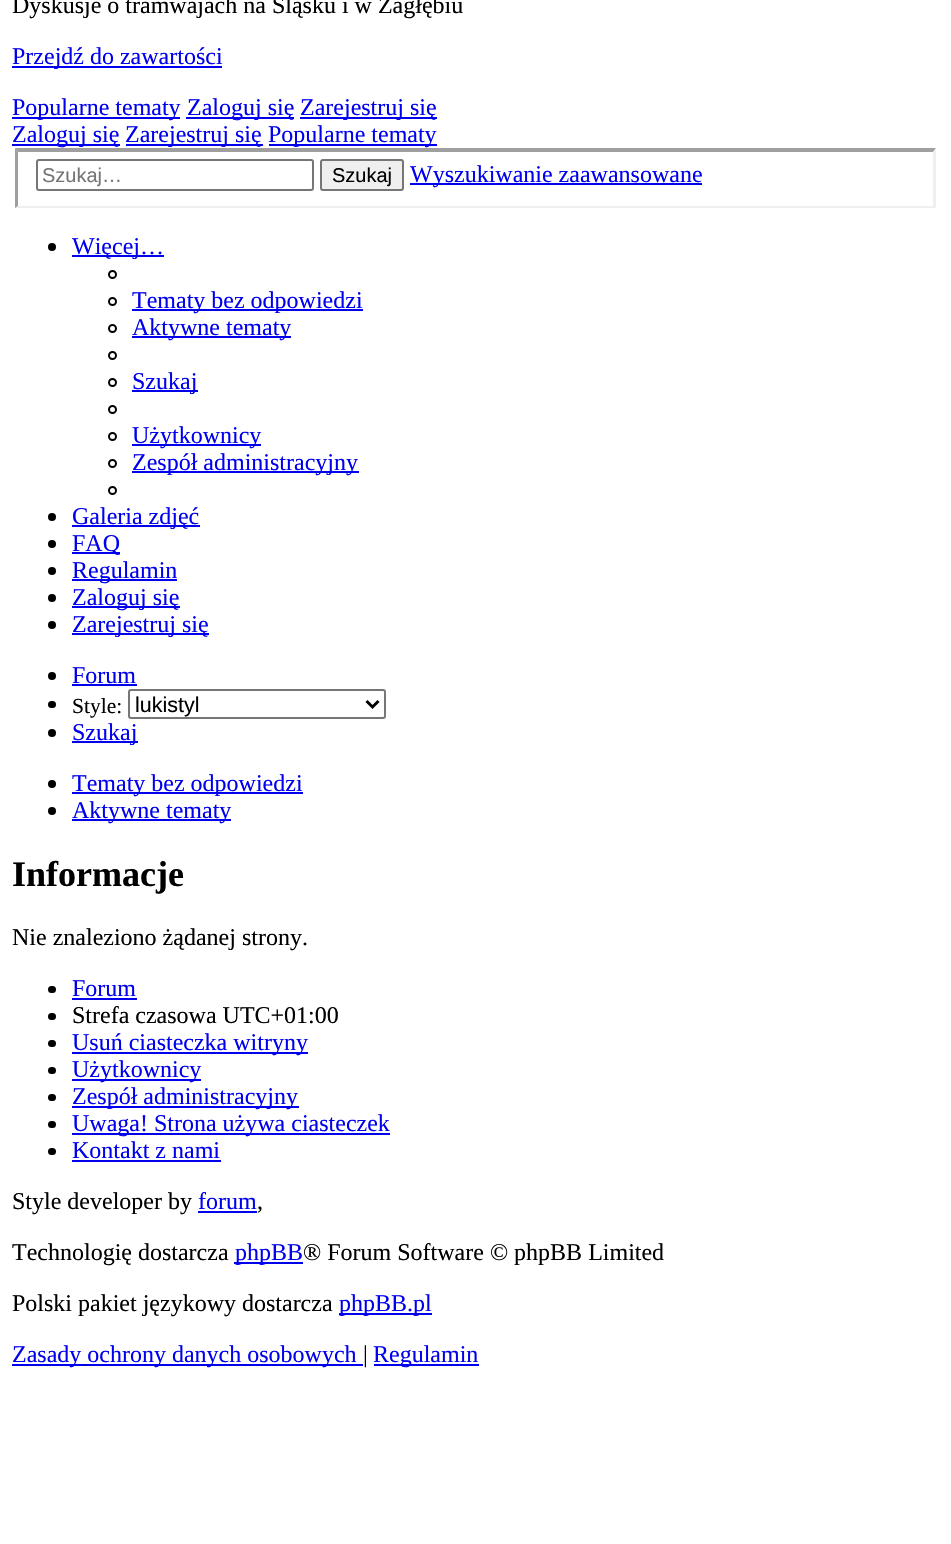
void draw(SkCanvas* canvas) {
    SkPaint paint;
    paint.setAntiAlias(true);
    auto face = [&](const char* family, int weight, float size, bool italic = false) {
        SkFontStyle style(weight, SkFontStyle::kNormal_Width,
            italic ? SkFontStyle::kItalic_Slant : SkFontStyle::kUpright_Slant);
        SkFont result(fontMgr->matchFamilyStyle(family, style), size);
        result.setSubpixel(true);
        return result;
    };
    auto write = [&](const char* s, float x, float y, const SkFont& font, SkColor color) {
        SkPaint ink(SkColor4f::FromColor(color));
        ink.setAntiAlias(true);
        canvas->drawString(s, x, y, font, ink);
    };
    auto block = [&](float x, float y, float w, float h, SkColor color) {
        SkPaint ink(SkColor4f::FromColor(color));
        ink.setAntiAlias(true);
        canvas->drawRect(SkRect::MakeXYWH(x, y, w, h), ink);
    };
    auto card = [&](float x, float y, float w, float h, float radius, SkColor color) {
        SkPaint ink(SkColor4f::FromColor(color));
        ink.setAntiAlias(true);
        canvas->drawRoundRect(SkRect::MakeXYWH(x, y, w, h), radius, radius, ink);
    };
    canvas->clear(SK_ColorWHITE);
    auto kFont1 = face("Liberation Serif", 400, 24);
    write("Dyskusje o tramwajach na Śląsku i w Zagłębiu", 12, 13, kFont1, SK_ColorBLACK);
    block(12, 66, 210, 2, SkColorSetRGB(0, 0, 238));
    write("Przejdź do zawartości", 12, 64, kFont1, SkColorSetRGB(0, 0, 238));
    block(12, 117, 168, 2, SkColorSetRGB(0, 0, 238));
    write("Popularne tematy", 12, 115, kFont1, SkColorSetRGB(0, 0, 238));
    block(186, 117, 108, 2, SkColorSetRGB(0, 0, 238));
    write("Zaloguj się", 187, 115, kFont1, SkColorSetRGB(0, 0, 238));
    block(300, 117, 137, 2, SkColorSetRGB(0, 0, 238));
    write("Zarejestruj się", 300, 115, kFont1, SkColorSetRGB(0, 0, 238));
    block(12, 144, 108, 2, SkColorSetRGB(0, 0, 238));
    write("Zaloguj się", 12, 142, kFont1, SkColorSetRGB(0, 0, 238));
    block(126, 144, 137, 2, SkColorSetRGB(0, 0, 238));
    write("Zarejestruj się", 125, 142, kFont1, SkColorSetRGB(0, 0, 238));
    block(269, 144, 168, 2, SkColorSetRGB(0, 0, 238));
    write("Popularne tematy", 268, 142, kFont1, SkColorSetRGB(0, 0, 238));
    paint.setColor(SkColorSetRGB(159, 159, 159));
    canvas->drawPath(SkPathBuilder().moveTo(15, 148).lineTo(936, 148).lineTo(933, 152).lineTo(18, 152).close().detach(), paint);
    paint.setColor(SkColorSetRGB(239, 239, 239));
    canvas->drawPath(SkPathBuilder().moveTo(936, 148).lineTo(936, 208).lineTo(933, 206).lineTo(933, 152).close().detach(), paint);
    canvas->drawPath(SkPathBuilder().moveTo(936, 208).lineTo(15, 208).lineTo(18, 206).lineTo(933, 206).close().detach(), paint);
    paint.setColor(SkColorSetRGB(159, 159, 159));
    canvas->drawPath(SkPathBuilder().moveTo(15, 208).lineTo(15, 148).lineTo(18, 152).lineTo(18, 206).close().detach(), paint);
    paint.setStyle(SkPaint::kStroke_Style);
    paint.setStrokeWidth(2);
    paint.setColor(SkColorSetRGB(118, 118, 118));
    canvas->drawRoundRect(SkRect::MakeXYWH(37, 160, 276, 30), 2, 2, paint);
    auto kFont2 = face("Liberation Sans", 400, 20);
    write("Szukaj…", 42, 182, kFont2, SkColorSetRGB(117, 117, 117));
    paint.setStyle(SkPaint::kFill_Style);
    paint.setColor(SkColorSetRGB(239, 239, 239));
    canvas->drawRoundRect(SkRect::MakeXYWH(321, 160, 82, 30), 2, 2, paint);
    paint.setStyle(SkPaint::kStroke_Style);
    paint.setColor(SkColorSetRGB(118, 118, 118));
    canvas->drawRoundRect(SkRect::MakeXYWH(321, 160, 82, 30), 2, 2, paint);
    write("Szukaj", 332, 182, kFont2, SK_ColorBLACK);
    block(410, 183, 292, 2, SkColorSetRGB(0, 0, 238));
    write("Wyszukiwanie zaawansowane", 410, 182, kFont1, SkColorSetRGB(0, 0, 238));
    paint.setStyle(SkPaint::kFill_Style);
    paint.setColor(SK_ColorBLACK);
    canvas->drawCircle(52, 247, 4, paint);
    block(72, 255, 92, 2, SkColorSetRGB(0, 0, 238));
    write("Więcej…", 72, 254, kFont1, SkColorSetRGB(0, 0, 238));
    paint.setStyle(SkPaint::kStroke_Style);
    canvas->drawCircle(112.5f, 274.5f, 3.5f, paint);
    canvas->drawCircle(112.5f, 301.5f, 3.5f, paint);
    block(132, 309, 231, 2, SkColorSetRGB(0, 0, 238));
    write("Tematy bez odpowiedzi", 132, 308, kFont1, SkColorSetRGB(0, 0, 238));
    canvas->drawCircle(112.5f, 328.5f, 3.5f, paint);
    block(132, 336, 159, 2, SkColorSetRGB(0, 0, 238));
    write("Aktywne tematy", 132, 335, kFont1, SkColorSetRGB(0, 0, 238));
    canvas->drawCircle(112.5f, 355.5f, 3.5f, paint);
    canvas->drawCircle(112.5f, 382.5f, 3.5f, paint);
    block(132, 390, 66, 2, SkColorSetRGB(0, 0, 238));
    write("Szukaj", 132, 389, kFont1, SkColorSetRGB(0, 0, 238));
    canvas->drawCircle(112.5f, 409.5f, 3.5f, paint);
    canvas->drawCircle(112.5f, 436.5f, 3.5f, paint);
    block(132, 444, 129, 2, SkColorSetRGB(0, 0, 238));
    write("Użytkownicy", 132, 443, kFont1, SkColorSetRGB(0, 0, 238));
    canvas->drawCircle(112.5f, 463.5f, 3.5f, paint);
    block(132, 471, 227, 2, SkColorSetRGB(0, 0, 238));
    write("Zespół administracyjny", 132, 470, kFont1, SkColorSetRGB(0, 0, 238));
    canvas->drawCircle(112.5f, 490.5f, 3.5f, paint);
    paint.setStyle(SkPaint::kFill_Style);
    canvas->drawCircle(52, 517, 4, paint);
    block(72, 525, 128, 2, SkColorSetRGB(0, 0, 238));
    write("Galeria zdjęć", 72, 524, kFont1, SkColorSetRGB(0, 0, 238));
    canvas->drawCircle(52, 544, 4, paint);
    block(72, 552, 48, 2, SkColorSetRGB(0, 0, 238));
    write("FAQ", 72, 551, kFont1, SkColorSetRGB(0, 0, 238));
    canvas->drawCircle(52, 571, 4, paint);
    block(72, 579, 105, 2, SkColorSetRGB(0, 0, 238));
    write("Regulamin", 72, 578, kFont1, SkColorSetRGB(0, 0, 238));
    canvas->drawCircle(52, 598, 4, paint);
    block(72, 606, 108, 2, SkColorSetRGB(0, 0, 238));
    write("Zaloguj się", 72, 605, kFont1, SkColorSetRGB(0, 0, 238));
    canvas->drawCircle(52, 625, 4, paint);
    block(72, 633, 137, 2, SkColorSetRGB(0, 0, 238));
    write("Zarejestruj się", 72, 632, kFont1, SkColorSetRGB(0, 0, 238));
    canvas->drawCircle(52, 676, 4, paint);
    write("Forum", 72, 683, kFont1, SkColorSetRGB(0, 0, 238));
    block(72, 684, 65, 2, SkColorSetRGB(0, 0, 238));
    card(48, 701, 8, 7, 3.5f, SK_ColorBLACK);
    auto kFont3 = face("Liberation Serif", 400, 21.5f);
    write("Style:", 72, 713, kFont3, SK_ColorBLACK);
    paint.setStyle(SkPaint::kStroke_Style);
    paint.setColor(SkColorSetRGB(118, 118, 118));
    canvas->drawRoundRect(SkRect::MakeXYWH(129, 690, 256, 28), 2, 2, paint);
    paint.setStrokeWidth(3);
    paint.setColor(SK_ColorBLACK);
    canvas->drawPath(SkPathBuilder().moveTo(366.5f, 701).lineTo(372.5f, 707).lineTo(378.5f, 701).detach(), paint);
    auto kFont4 = face("Liberation Sans", 400, 21.5f);
    write("lukistyl", 135, 712, kFont4, SK_ColorBLACK);
    paint.setStyle(SkPaint::kFill_Style);
    canvas->drawCircle(52, 733, 4, paint);
    block(72, 741, 66, 2, SkColorSetRGB(0, 0, 238));
    write("Szukaj", 72, 740, kFont1, SkColorSetRGB(0, 0, 238));
    canvas->drawCircle(52, 784, 4, paint);
    block(72, 792, 231, 2, SkColorSetRGB(0, 0, 238));
    write("Tematy bez odpowiedzi", 72, 791, kFont1, SkColorSetRGB(0, 0, 238));
    canvas->drawCircle(52, 811, 4, paint);
    block(72, 819, 159, 2, SkColorSetRGB(0, 0, 238));
    write("Aktywne tematy", 72, 818, kFont1, SkColorSetRGB(0, 0, 238));
    auto kFont5 = face("Liberation Serif", 700, 36);
    write("Informacje", 12, 886, kFont5, SK_ColorBLACK);
    write("Nie znaleziono żądanej strony.", 12, 945, kFont1, SK_ColorBLACK);
    card(48, 986, 8, 7, 3.5f, SK_ColorBLACK);
    write("Forum", 72, 996, kFont1, SkColorSetRGB(0, 0, 238));
    block(72, 998, 65, 2, SkColorSetRGB(0, 0, 238));
    card(48, 1013, 8, 7, 3.5f, SK_ColorBLACK);
    write("Strefa czasowa UTC+01:00", 72, 1023, kFont1, SK_ColorBLACK);
    card(48, 1040, 8, 7, 3.5f, SK_ColorBLACK);
    block(72, 1052, 236, 2, SkColorSetRGB(0, 0, 238));
    write("Usuń ciasteczka witryny", 72, 1050, kFont1, SkColorSetRGB(0, 0, 238));
    card(48, 1067, 8, 7, 3.5f, SK_ColorBLACK);
    block(72, 1079, 129, 2, SkColorSetRGB(0, 0, 238));
    write("Użytkownicy", 72, 1077, kFont1, SkColorSetRGB(0, 0, 238));
    card(48, 1094, 8, 7, 3.5f, SK_ColorBLACK);
    block(72, 1106, 227, 2, SkColorSetRGB(0, 0, 238));
    write("Zespół administracyjny", 72, 1104, kFont1, SkColorSetRGB(0, 0, 238));
    card(48, 1121, 8, 7, 3.5f, SK_ColorBLACK);
    block(72, 1133, 318, 2, SkColorSetRGB(0, 0, 238));
    write("Uwaga! Strona używa ciasteczek", 72, 1131, kFont1, SkColorSetRGB(0, 0, 238));
    card(48, 1148, 8, 7, 3.5f, SK_ColorBLACK);
    write("Kontakt z nami", 72, 1158, kFont1, SkColorSetRGB(0, 0, 238));
    block(72, 1160, 149, 2, SkColorSetRGB(0, 0, 238));
    write("Style developer by", 12, 1209, kFont1, SK_ColorBLACK);
    write("forum", 198, 1209, kFont1, SkColorSetRGB(0, 0, 238));
    block(198, 1211, 59, 2, SkColorSetRGB(0, 0, 238));
    write(",", 257, 1209, kFont1, SK_ColorBLACK);
    write("Technologię dostarcza", 12, 1260, kFont1, SK_ColorBLACK);
    block(234, 1262, 69, 2, SkColorSetRGB(0, 0, 238));
    write("phpBB", 235, 1260, kFont1, SkColorSetRGB(0, 0, 238));
    write("® Forum Software © phpBB Limited", 303, 1260, kFont1, SK_ColorBLACK);
    write("Polski pakiet językowy dostarcza", 12, 1311, kFont1, SK_ColorBLACK);
    block(339, 1313, 93, 2, SkColorSetRGB(0, 0, 238));
    write("phpBB.pl", 339, 1311, kFont1, SkColorSetRGB(0, 0, 238));
    block(12, 1364, 351, 2, SkColorSetRGB(0, 0, 238));
    write("Zasady ochrony danych osobowych", 12, 1362, kFont1, SkColorSetRGB(0, 0, 238));
    write("|", 363, 1362, kFont1, SK_ColorBLACK);
    block(374, 1364, 105, 2, SkColorSetRGB(0, 0, 238));
    write("Regulamin", 373, 1362, kFont1, SkColorSetRGB(0, 0, 238));
}
